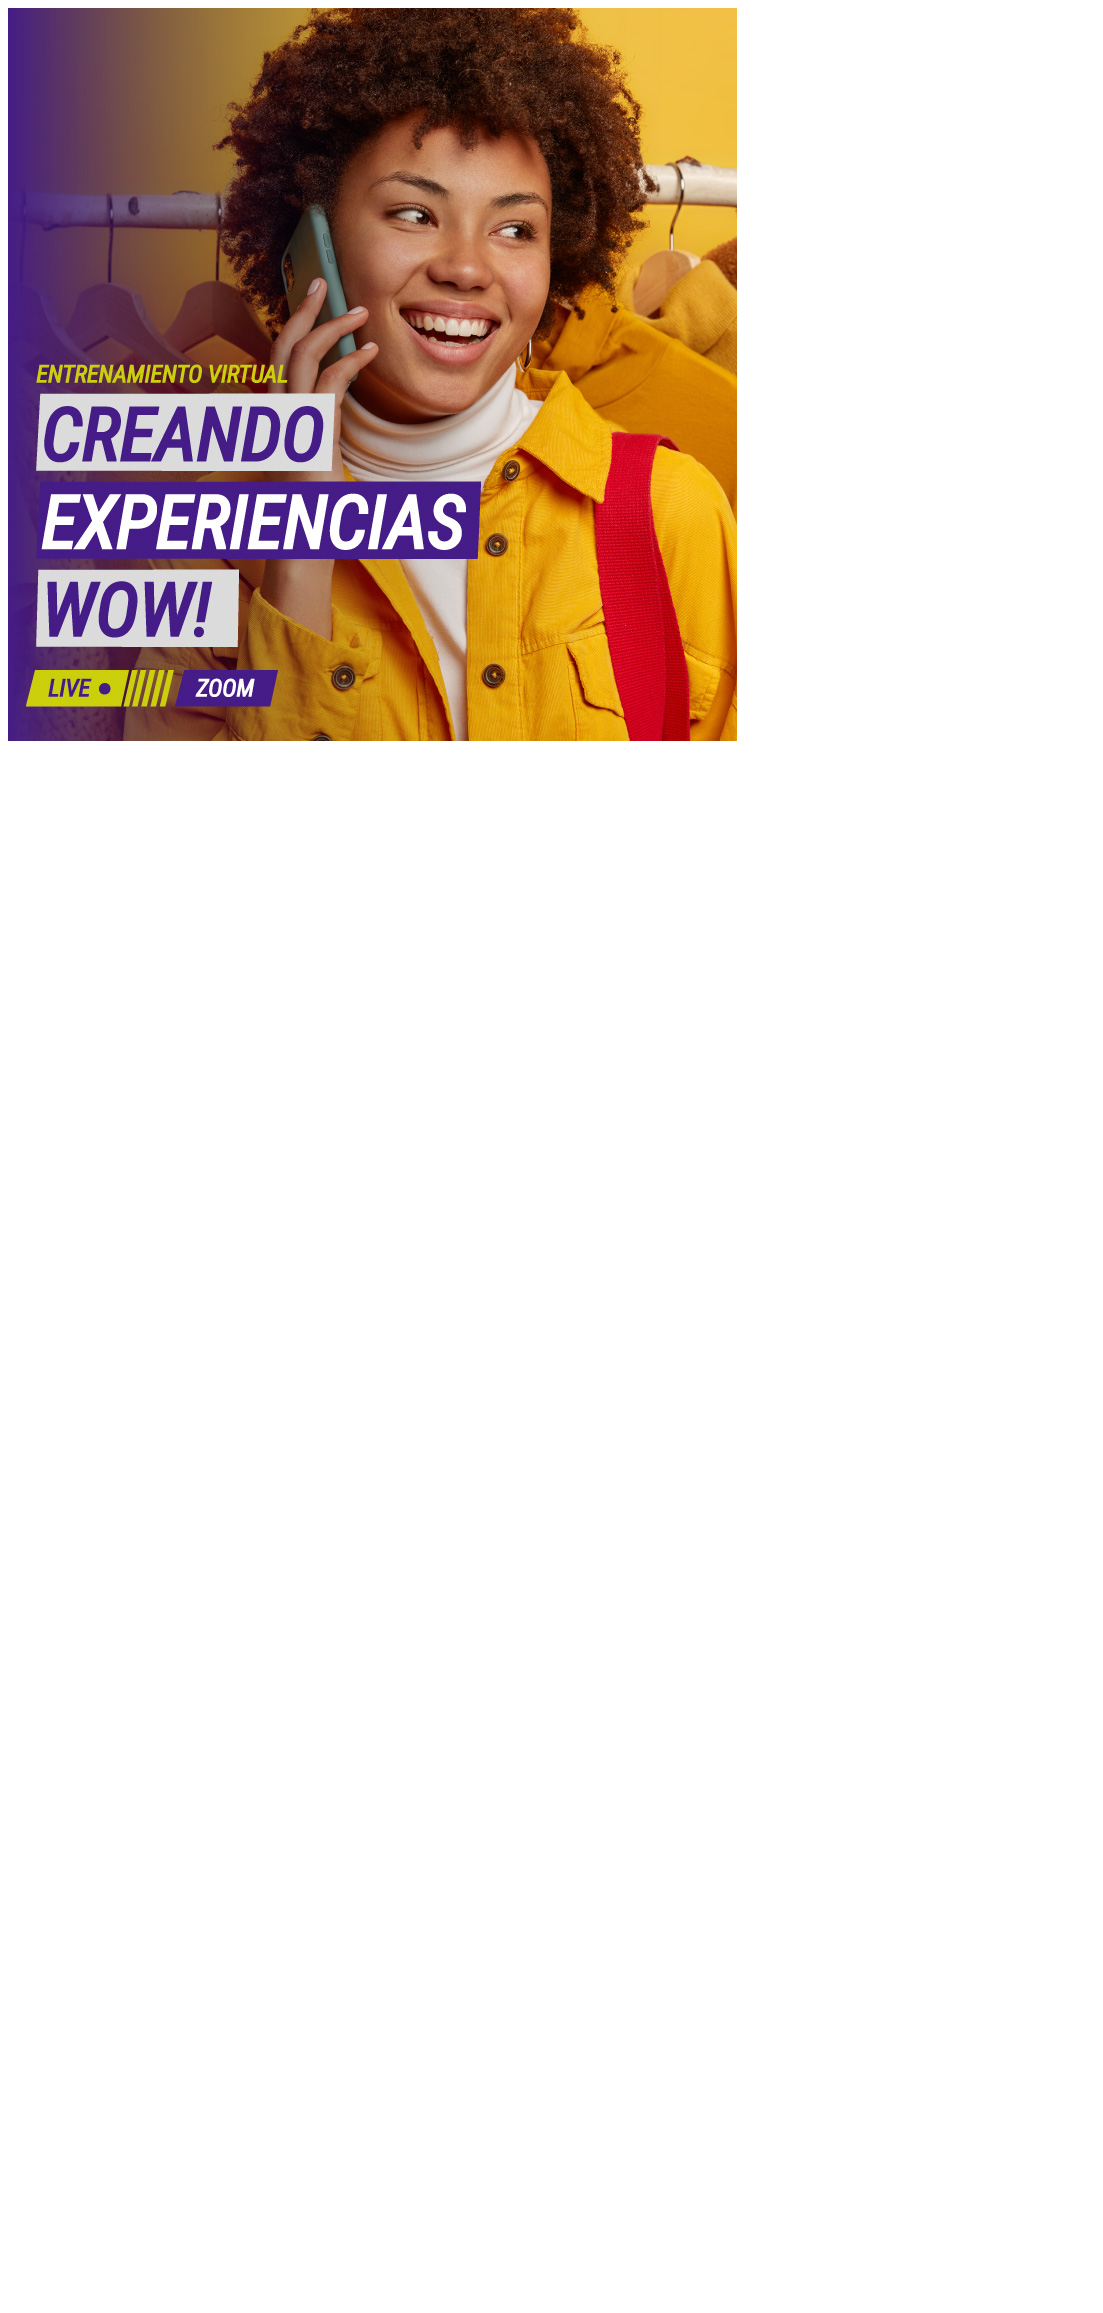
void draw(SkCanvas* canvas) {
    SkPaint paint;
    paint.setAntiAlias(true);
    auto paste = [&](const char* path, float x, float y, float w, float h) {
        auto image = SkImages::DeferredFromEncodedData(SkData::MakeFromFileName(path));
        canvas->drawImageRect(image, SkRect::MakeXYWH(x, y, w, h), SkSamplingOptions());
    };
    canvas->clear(SK_ColorWHITE);
    paste("pic1.png", 8, 8, 729, 733);
}
